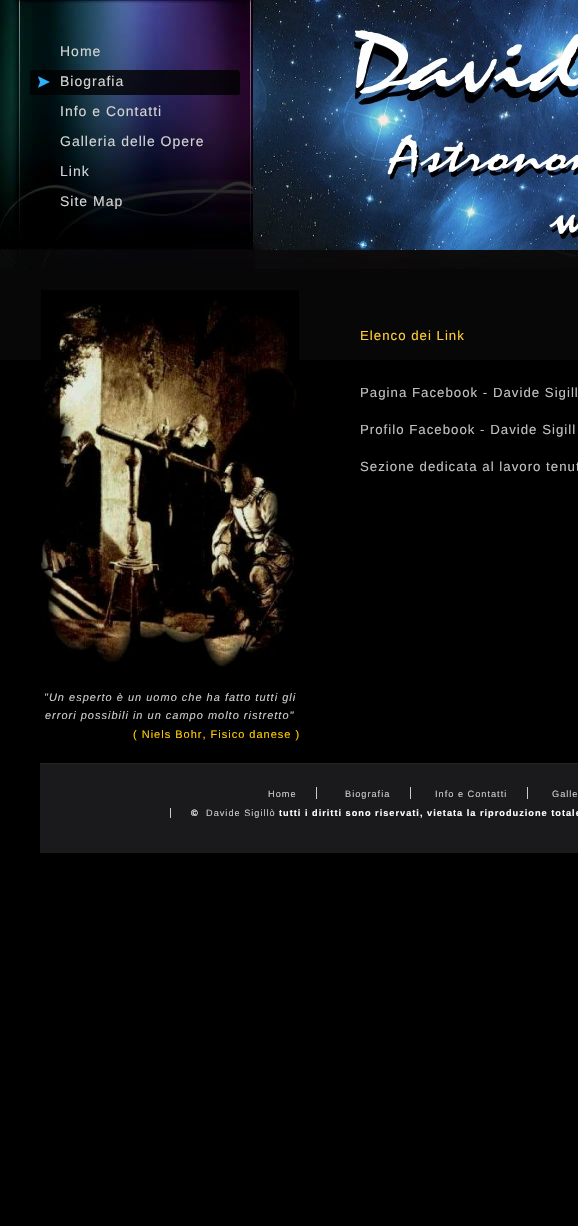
void draw(SkCanvas* canvas) {
    SkPaint paint;
    paint.setAntiAlias(true);
    auto face = [&](const char* family, int weight, float size, bool italic = false) {
        SkFontStyle style(weight, SkFontStyle::kNormal_Width,
            italic ? SkFontStyle::kItalic_Slant : SkFontStyle::kUpright_Slant);
        SkFont result(fontMgr->matchFamilyStyle(family, style), size);
        result.setSubpixel(true);
        return result;
    };
    auto writeSpaced = [&](const char* s, float x, float y, const SkFont& font, const SkPaint& ink, float letter, float word) {
        std::vector<SkGlyphID> glyphs(font.countText(s, strlen(s), SkTextEncoding::kUTF8));
        std::vector<float> xs(glyphs.size());
        font.textToGlyphs(s, strlen(s), SkTextEncoding::kUTF8, glyphs);
        font.getXPos(glyphs, xs, x);
        float extra = 0;
        for (size_t i = 0; i < glyphs.size(); i++) {
            xs[i] += extra;
            extra += letter + word * (glyphs[i] == font.unicharToGlyph(' '));
        }
        canvas->drawTextBlob(SkTextBlob::MakeFromPosHGlyphs(glyphs, xs, y, font), 0, 0, ink);
    };
    auto block = [&](float x, float y, float w, float h, SkColor color) {
        SkPaint ink(SkColor4f::FromColor(color));
        ink.setAntiAlias(true);
        canvas->drawRect(SkRect::MakeXYWH(x, y, w, h), ink);
    };
    auto paste = [&](const char* path, float x, float y, float w, float h) {
        auto image = SkImages::DeferredFromEncodedData(SkData::MakeFromFileName(path));
        canvas->drawImageRect(image, SkRect::MakeXYWH(x, y, w, h), SkSamplingOptions());
    };
    canvas->clear(SK_ColorBLACK);
    paste("pic1.png", 0, 0, 578, 250);
    auto kFont1 = face("Liberation Sans", 400, 14);
    paint.setColor(SkColorSetRGB(212, 212, 212));
    writeSpaced("Home", 60, 56, kFont1, paint, 1, 0);
    paste("pic2.png", 30, 70, 210, 25);
    writeSpaced("Biografia", 60, 86, kFont1, paint, 1, 0);
    writeSpaced("Info e Contatti", 60, 116, kFont1, paint, 1, 0);
    writeSpaced("Galleria delle Opere", 60, 146, kFont1, paint, 1, 0);
    writeSpaced("Link", 60, 176, kFont1, paint, 1, 0);
    writeSpaced("Site Map", 60, 206, kFont1, paint, 1, 0);
    block(0, 269, 578, 91, SkColorSetRGB(7, 7, 8));
    paste("pic3.png", 0, 250, 578, 19);
    auto kFont2 = face("Liberation Sans", 400, 13.25f);
    paint.setColor(SkColorSetRGB(255, 204, 51));
    writeSpaced("Elenco dei Link", 360, 340, kFont2, paint, 1, 0);
    paint.setColor(SkColorSetRGB(192, 192, 192));
    writeSpaced("Pagina Facebook - Davide Sigill", 360, 397, kFont2, paint, 1, 0);
    writeSpaced("Profilo Facebook - Davide Sigill", 360, 434, kFont2, paint, 1, 0);
    writeSpaced("Sezione dedicata al lavoro tenut", 360, 471, kFont2, paint, 1, 0);
    paste("pic4.png", 41, 290, 258, 377);
    auto kFont3 = face("Liberation Sans", 400, 11, true);
    paint.setColor(SkColorSetRGB(204, 204, 204));
    writeSpaced("\"Un esperto è un uomo che ha fatto tutti gli", 44, 701, kFont3, paint, 1, 0);
    writeSpaced("errori possibili in un campo molto ristretto\"", 45, 719, kFont3, paint, 1, 0);
    auto kFont4 = face("Liberation Sans", 400, 11);
    paint.setColor(SkColorSetRGB(255, 204, 0));
    writeSpaced("( Niels Bohr, Fisico danese )", 133, 738, kFont4, paint, 1, 0);
    block(40, 764, 538, 89, SkColorSetRGB(26, 26, 28));
    block(40, 763, 538, 1, SkColorSetRGB(37, 37, 39));
    auto kFont5 = face("Liberation Sans", 400, 9.2f);
    paint.setColor(SkColorSetRGB(204, 204, 204));
    writeSpaced("Home", 268, 797, kFont5, paint, 1, 0);
    block(316, 787, 1, 12, SkColorSetRGB(204, 204, 204));
    writeSpaced("Biografia", 345, 797, kFont5, paint, 1, 0);
    block(410, 787, 1, 12, SkColorSetRGB(204, 204, 204));
    writeSpaced("Info e Contatti", 435, 797, kFont5, paint, 1, 0);
    block(527, 787, 1, 12, SkColorSetRGB(204, 204, 204));
    writeSpaced("Galle", 552, 797, kFont5, paint, 1, 0);
    block(170, 808, 1, 10, SkColorSetRGB(204, 204, 204));
    auto kFont6 = face("Liberation Sans", 700, 9.2f);
    paint.setColor(SK_ColorWHITE);
    writeSpaced("©", 191, 816, kFont6, paint, 1, 0);
    paint.setColor(SkColorSetRGB(204, 204, 204));
    writeSpaced("Davide Sigillò", 206, 816, kFont5, paint, 1, 0);
    paint.setColor(SK_ColorWHITE);
    writeSpaced("tutti i diritti sono riservati, vietata la riproduzione totale", 279, 816, kFont6, paint, 1, 0);
}
